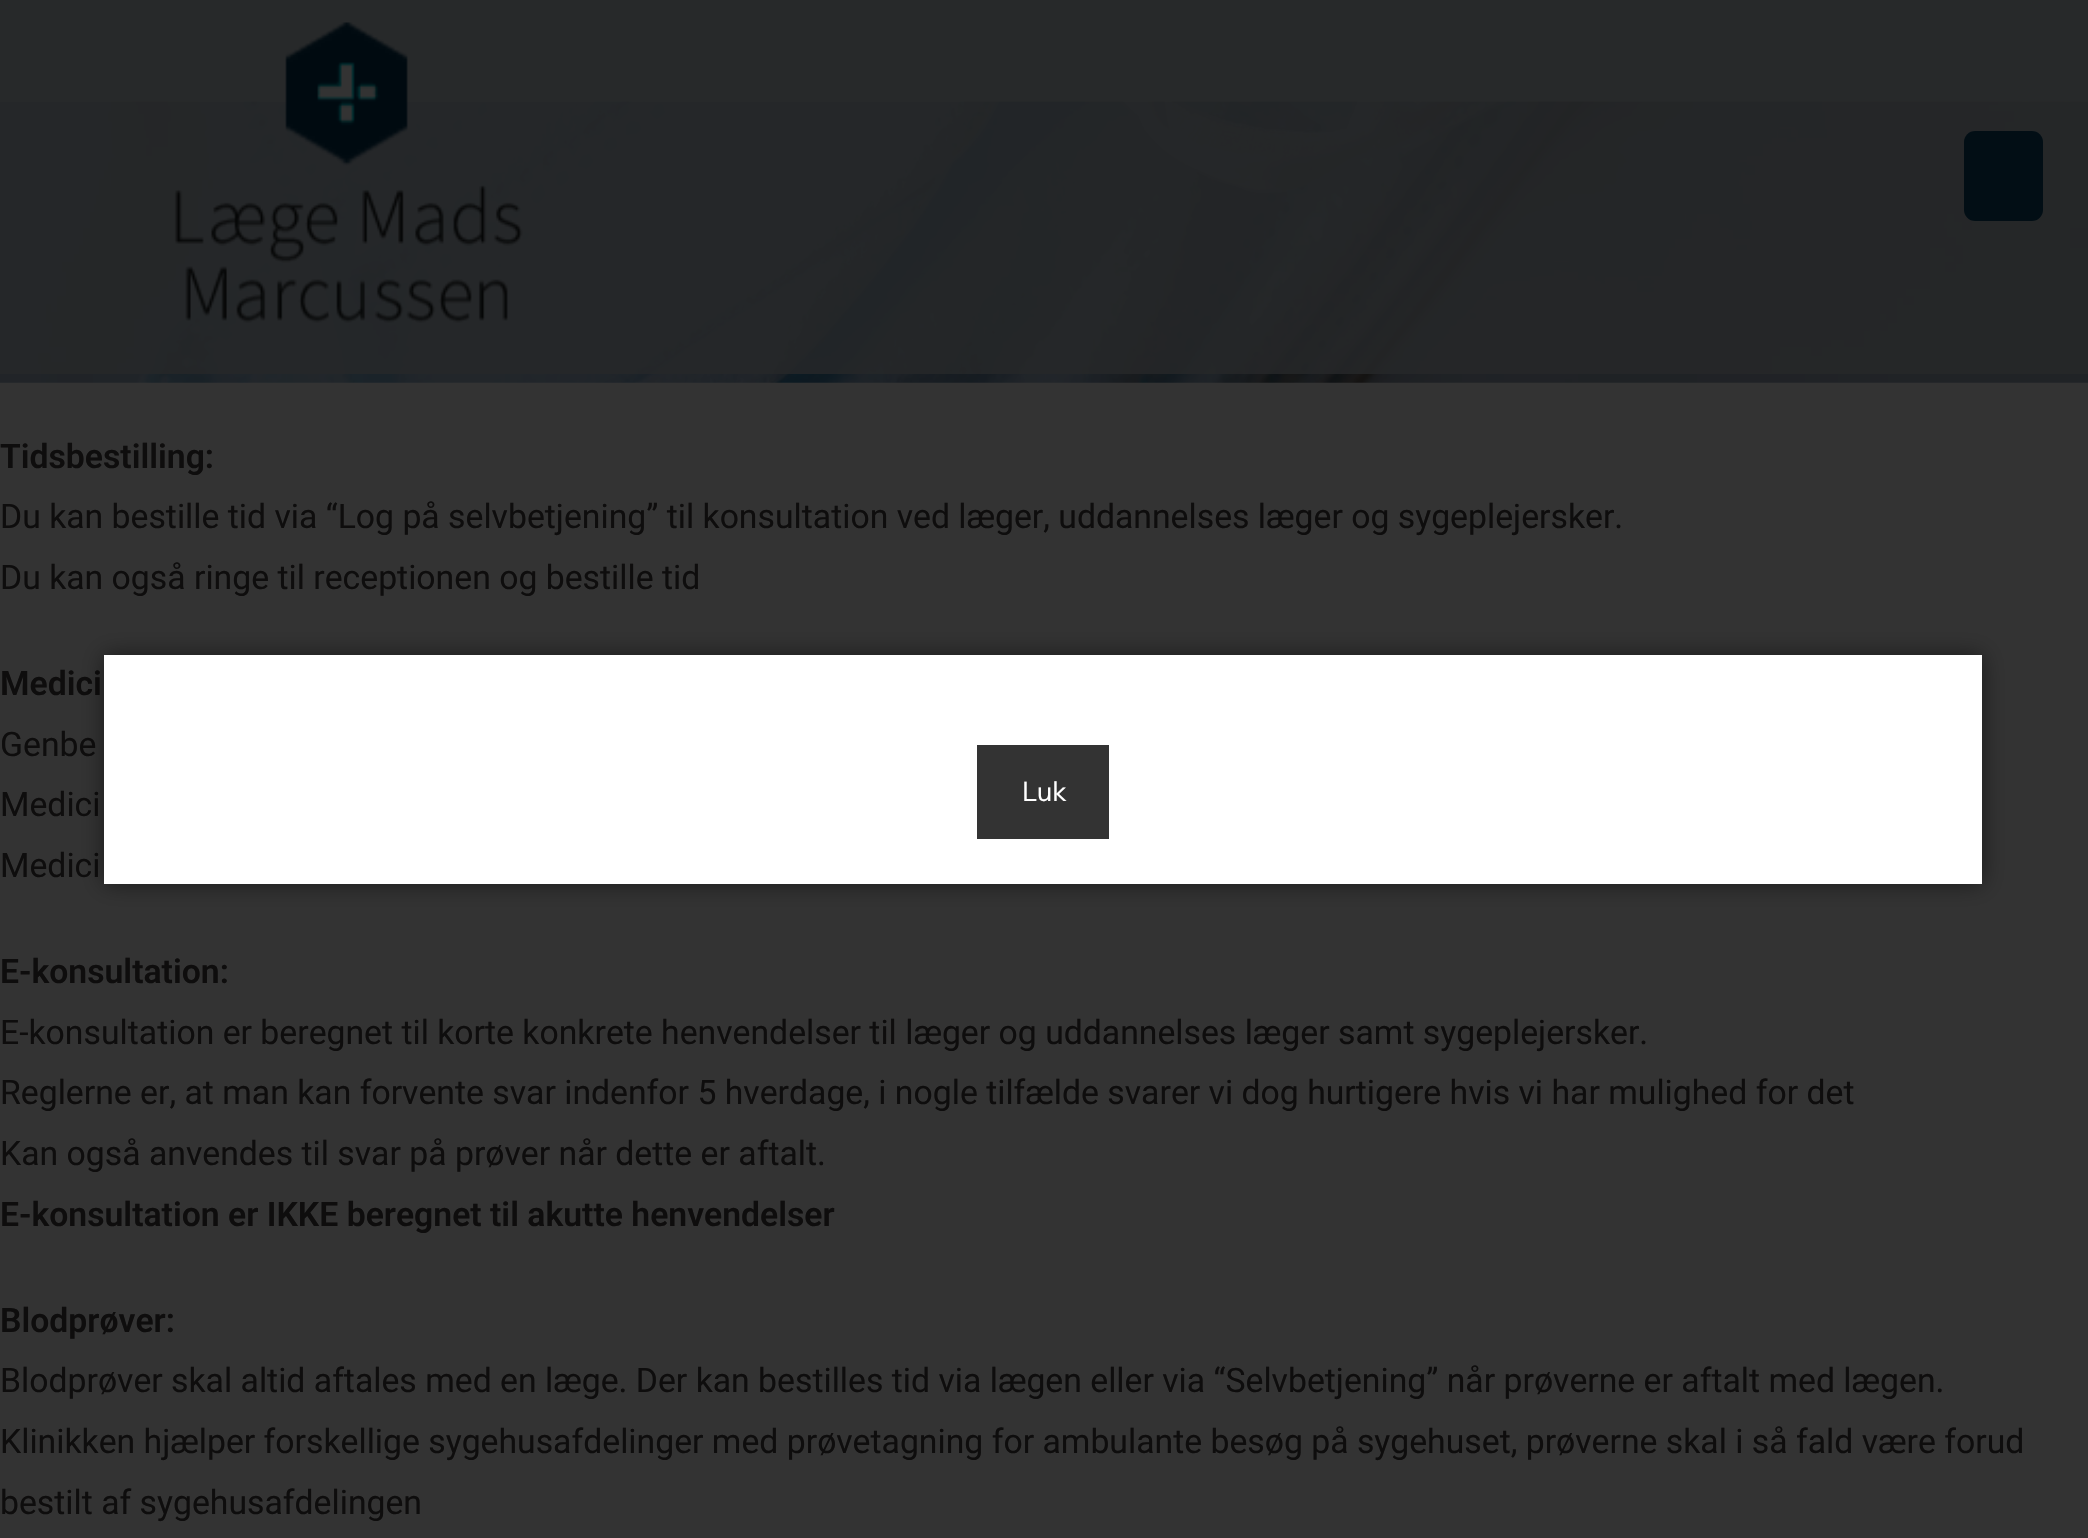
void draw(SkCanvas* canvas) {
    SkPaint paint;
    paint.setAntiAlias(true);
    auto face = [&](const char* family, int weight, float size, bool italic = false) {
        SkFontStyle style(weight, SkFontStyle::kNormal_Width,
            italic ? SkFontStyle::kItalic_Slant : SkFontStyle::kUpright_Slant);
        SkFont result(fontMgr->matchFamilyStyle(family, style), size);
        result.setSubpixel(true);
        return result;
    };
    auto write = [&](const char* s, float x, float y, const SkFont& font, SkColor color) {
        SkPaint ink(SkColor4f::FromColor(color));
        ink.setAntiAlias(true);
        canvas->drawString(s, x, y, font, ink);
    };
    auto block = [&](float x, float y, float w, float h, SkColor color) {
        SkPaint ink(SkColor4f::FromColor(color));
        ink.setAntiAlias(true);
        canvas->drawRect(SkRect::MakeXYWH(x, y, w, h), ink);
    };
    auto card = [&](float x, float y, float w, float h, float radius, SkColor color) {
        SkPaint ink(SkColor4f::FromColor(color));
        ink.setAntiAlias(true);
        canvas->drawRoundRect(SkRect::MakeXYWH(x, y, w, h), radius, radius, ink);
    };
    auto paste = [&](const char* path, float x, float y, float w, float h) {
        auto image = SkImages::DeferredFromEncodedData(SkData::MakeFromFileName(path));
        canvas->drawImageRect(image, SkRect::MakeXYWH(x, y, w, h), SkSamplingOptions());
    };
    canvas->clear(SkColorSetRGB(51, 51, 51));
    block(0, 101, 2088, 1, SkColorSetRGB(40, 41, 42));
    block(0, 0, 2088, 101, SkColorSetRGB(39, 41, 42));
    paste("pic2.png", 0, 101, 2088, 282);
    paste("pic1.png", 174, 22, 349, 301);
    card(1964, 131, 79, 90, 11, SkColorSetRGB(2, 14, 21));
    auto kFont1 = face("Roboto", 600, 33.75f);
    write("Tidsbestilling:", 0, 468, kFont1, SkColorSetRGB(14, 13, 13));
    auto kFont2 = face("Roboto", 400, 33.75f);
    write("Du kan bestille tid via “Log på selvbetjening” til konsultation ved læger, uddannelses læger og sygeplejersker.", 0, 528, kFont2, SkColorSetRGB(14, 13, 13));
    write("Du kan også ringe til receptionen og bestille tid", 0, 589, kFont2, SkColorSetRGB(14, 13, 13));
    write("Medici", 0, 695, kFont1, SkColorSetRGB(14, 13, 13));
    write("Genbe", 0, 756, kFont2, SkColorSetRGB(14, 13, 13));
    write("Medici", 0, 816, kFont2, SkColorSetRGB(14, 13, 13));
    write("Medici", 0, 877, kFont2, SkColorSetRGB(14, 13, 13));
    write("E-konsultation:", 0, 983, kFont1, SkColorSetRGB(14, 13, 13));
    write("E-konsultation er beregnet til korte konkrete henvendelser til læger og uddannelses læger samt sygeplejersker.", 0, 1044, kFont2, SkColorSetRGB(14, 13, 13));
    write("Reglerne er, at man kan forvente svar indenfor 5 hverdage, i nogle tilfælde svarer vi dog hurtigere hvis vi har mulighed for det", 0, 1104, kFont2, SkColorSetRGB(14, 13, 13));
    write("Kan også anvendes til svar på prøver når dette er aftalt.", 0, 1165, kFont2, SkColorSetRGB(14, 13, 13));
    write("E-konsultation er IKKE beregnet til akutte henvendelser", 0, 1226, kFont1, SkColorSetRGB(14, 13, 13));
    write("Blodprøver:", 0, 1332, kFont1, SkColorSetRGB(14, 13, 13));
    write("Blodprøver skal altid aftales med en læge. Der kan bestilles tid via lægen eller via “Selvbetjening” når prøverne er aftalt med lægen.", 0, 1392, kFont2, SkColorSetRGB(14, 13, 13));
    write("Klinikken hjælper forskellige sygehusafdelinger med prøvetagning for ambulante besøg på sygehuset, prøverne skal i så fald være forud", 0, 1453, kFont2, SkColorSetRGB(14, 13, 13));
    write("bestilt af sygehusafdelingen", 0, 1514, kFont2, SkColorSetRGB(14, 13, 13));
    paint.setColor(SkColorSetARGB(128, 0, 0, 0));
    paint.setMaskFilter(SkMaskFilter::MakeBlur(kNormal_SkBlurStyle, 11));
    canvas->drawRect(SkRect::MakeXYWH(104, 655, 1878, 229), paint);
    paint.setMaskFilter(nullptr);
    block(104, 655, 1878, 229, SK_ColorWHITE);
    block(977, 745, 132, 94, SkColorSetRGB(51, 51, 51));
    auto kFont3 = face("Muli", 400, 27);
    write("Luk", 1022, 801, kFont3, SK_ColorWHITE);
}
